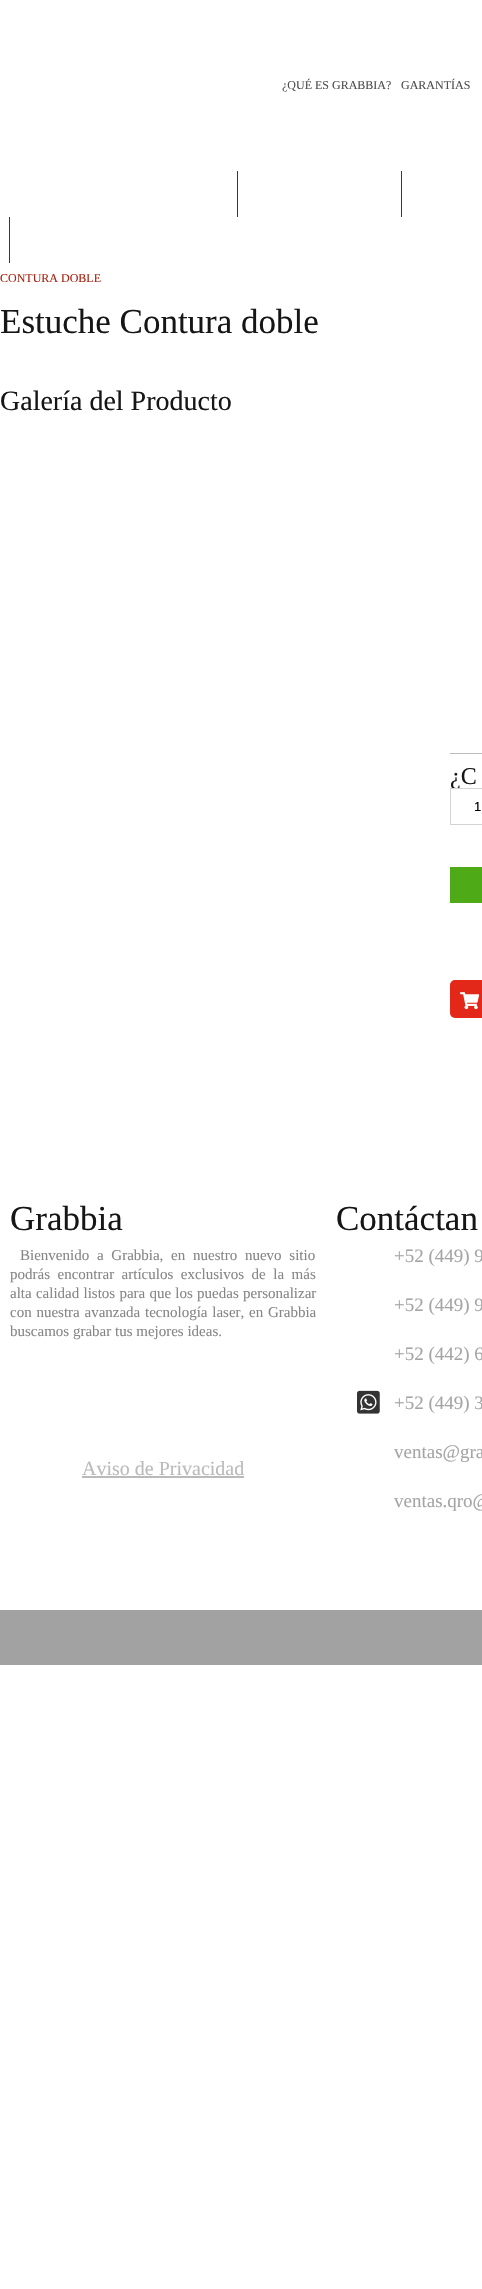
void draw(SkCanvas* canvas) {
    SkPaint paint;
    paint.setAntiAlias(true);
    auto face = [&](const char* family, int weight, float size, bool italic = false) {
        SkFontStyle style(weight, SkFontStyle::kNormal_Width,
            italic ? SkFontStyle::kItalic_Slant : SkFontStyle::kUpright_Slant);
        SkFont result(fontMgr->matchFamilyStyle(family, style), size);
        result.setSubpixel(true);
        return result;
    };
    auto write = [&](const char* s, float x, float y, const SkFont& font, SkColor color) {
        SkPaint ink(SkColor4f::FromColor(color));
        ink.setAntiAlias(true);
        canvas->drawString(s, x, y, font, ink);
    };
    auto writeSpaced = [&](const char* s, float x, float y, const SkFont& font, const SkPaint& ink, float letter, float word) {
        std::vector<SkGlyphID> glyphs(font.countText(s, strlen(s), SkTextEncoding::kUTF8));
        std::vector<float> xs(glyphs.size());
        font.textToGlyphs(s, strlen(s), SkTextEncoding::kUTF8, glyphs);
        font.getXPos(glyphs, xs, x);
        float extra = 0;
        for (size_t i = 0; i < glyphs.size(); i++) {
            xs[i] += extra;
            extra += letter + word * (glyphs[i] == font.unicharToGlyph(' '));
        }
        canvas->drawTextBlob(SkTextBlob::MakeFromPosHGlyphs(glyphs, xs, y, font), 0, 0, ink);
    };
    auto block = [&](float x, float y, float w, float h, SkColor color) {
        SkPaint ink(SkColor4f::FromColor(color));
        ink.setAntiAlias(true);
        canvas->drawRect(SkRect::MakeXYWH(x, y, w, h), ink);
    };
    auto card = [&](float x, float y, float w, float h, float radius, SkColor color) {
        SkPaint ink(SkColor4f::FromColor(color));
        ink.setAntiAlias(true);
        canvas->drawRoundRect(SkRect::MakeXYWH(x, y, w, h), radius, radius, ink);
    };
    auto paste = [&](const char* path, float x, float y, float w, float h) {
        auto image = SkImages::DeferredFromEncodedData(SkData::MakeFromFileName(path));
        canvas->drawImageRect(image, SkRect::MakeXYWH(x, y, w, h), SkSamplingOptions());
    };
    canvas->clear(SK_ColorWHITE);
    auto kFont1 = face("Liberation Serif", 400, 12);
    write("¿QUÉ ES GRABBIA?", 282, 89, kFont1, SkColorSetRGB(78, 78, 79));
    write("GARANTÍAS", 401, 89, kFont1, SkColorSetRGB(78, 78, 79));
    block(237, 171, 1, 46, SkColorSetRGB(133, 27, 14));
    block(401, 171, 1, 46, SkColorSetRGB(133, 27, 14));
    block(9, 217, 1, 46, SkColorSetRGB(133, 27, 14));
    write("CONTURA DOBLE", 0, 282, kFont1, SkColorSetRGB(171, 34, 17));
    auto kFont2 = face("Liberation Serif", 400, 35);
    write("Estuche Contura doble", 0, 333, kFont2, SkColorSetRGB(22, 22, 22));
    auto kFont3 = face("Liberation Serif", 400, 28);
    write("Galería del Producto", 0, 410, kFont3, SkColorSetRGB(22, 22, 22));
    block(450, 753, 32, 1, SkColorSetRGB(187, 187, 187));
    auto kFont4 = face("Liberation Serif", 400, 24);
    write("¿C", 450, 784, kFont4, SkColorSetRGB(22, 22, 22));
    paint.setStyle(SkPaint::kStroke_Style);
    paint.setStrokeWidth(1);
    paint.setColor(SkColorSetRGB(212, 211, 211));
    canvas->drawRect(SkRect::MakeXYWH(450.5f, 788.5f, 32, 36), paint);
    auto kFont5 = face("Liberation Sans", 400, 13);
    write("1", 474, 811, kFont5, SK_ColorBLACK);
    block(450, 867, 32, 36, SkColorSetRGB(78, 170, 22));
    card(450, 980, 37, 38, 5, SkColorSetRGB(227, 40, 26));
    paste("pic1.png", 460, 992, 20, 18);
    write("Grabbia", 10, 1230, kFont2, SkColorSetRGB(22, 22, 22));
    auto kFont6 = face("Liberation Serif", 400, 15);
    paint.setStyle(SkPaint::kFill_Style);
    paint.setColor(SkColorSetRGB(135, 134, 134));
    writeSpaced("Bienvenido a Grabbia, en nuestro nuevo sitio", 20, 1260, kFont6, paint, 0, 4);
    writeSpaced("podrás encontrar artículos exclusivos de la más", 10, 1279, kFont6, paint, 0, 3.75f);
    writeSpaced("alta calidad listos para que los puedas personalizar", 10, 1298, kFont6, paint, 0, 0.5f);
    writeSpaced("con nuestra avanzada tecnología laser, en Grabbia", 10, 1317, kFont6, paint, 0, 1);
    write("buscamos grabar tus mejores ideas.", 10, 1336, kFont6, SkColorSetRGB(135, 134, 134));
    auto kFont7 = face("Liberation Serif", 400, 20);
    write("Aviso de Privacidad", 82, 1475, kFont7, SkColorSetRGB(186, 186, 186));
    block(82, 1476, 162, 2, SkColorSetRGB(186, 186, 186));
    write("Contáctan", 336, 1230, kFont2, SkColorSetRGB(22, 22, 22));
    auto kFont8 = face("Liberation Serif", 400, 19);
    write("+52 (449) 9", 394, 1262, kFont8, SkColorSetRGB(165, 165, 165));
    write("+52 (449) 9", 394, 1311, kFont8, SkColorSetRGB(165, 165, 165));
    write("+52 (442) 6", 394, 1360, kFont8, SkColorSetRGB(165, 165, 165));
    paste("pic2.png", 357, 1390, 23, 24);
    write("+52 (449) 3", 394, 1409, kFont8, SkColorSetRGB(165, 165, 165));
    write("ventas@gra", 394, 1458, kFont8, SkColorSetRGB(165, 165, 165));
    write("ventas.qro@", 394, 1507, kFont8, SkColorSetRGB(165, 165, 165));
    block(0, 1610, 482, 55, SkColorSetRGB(162, 162, 162));
}
